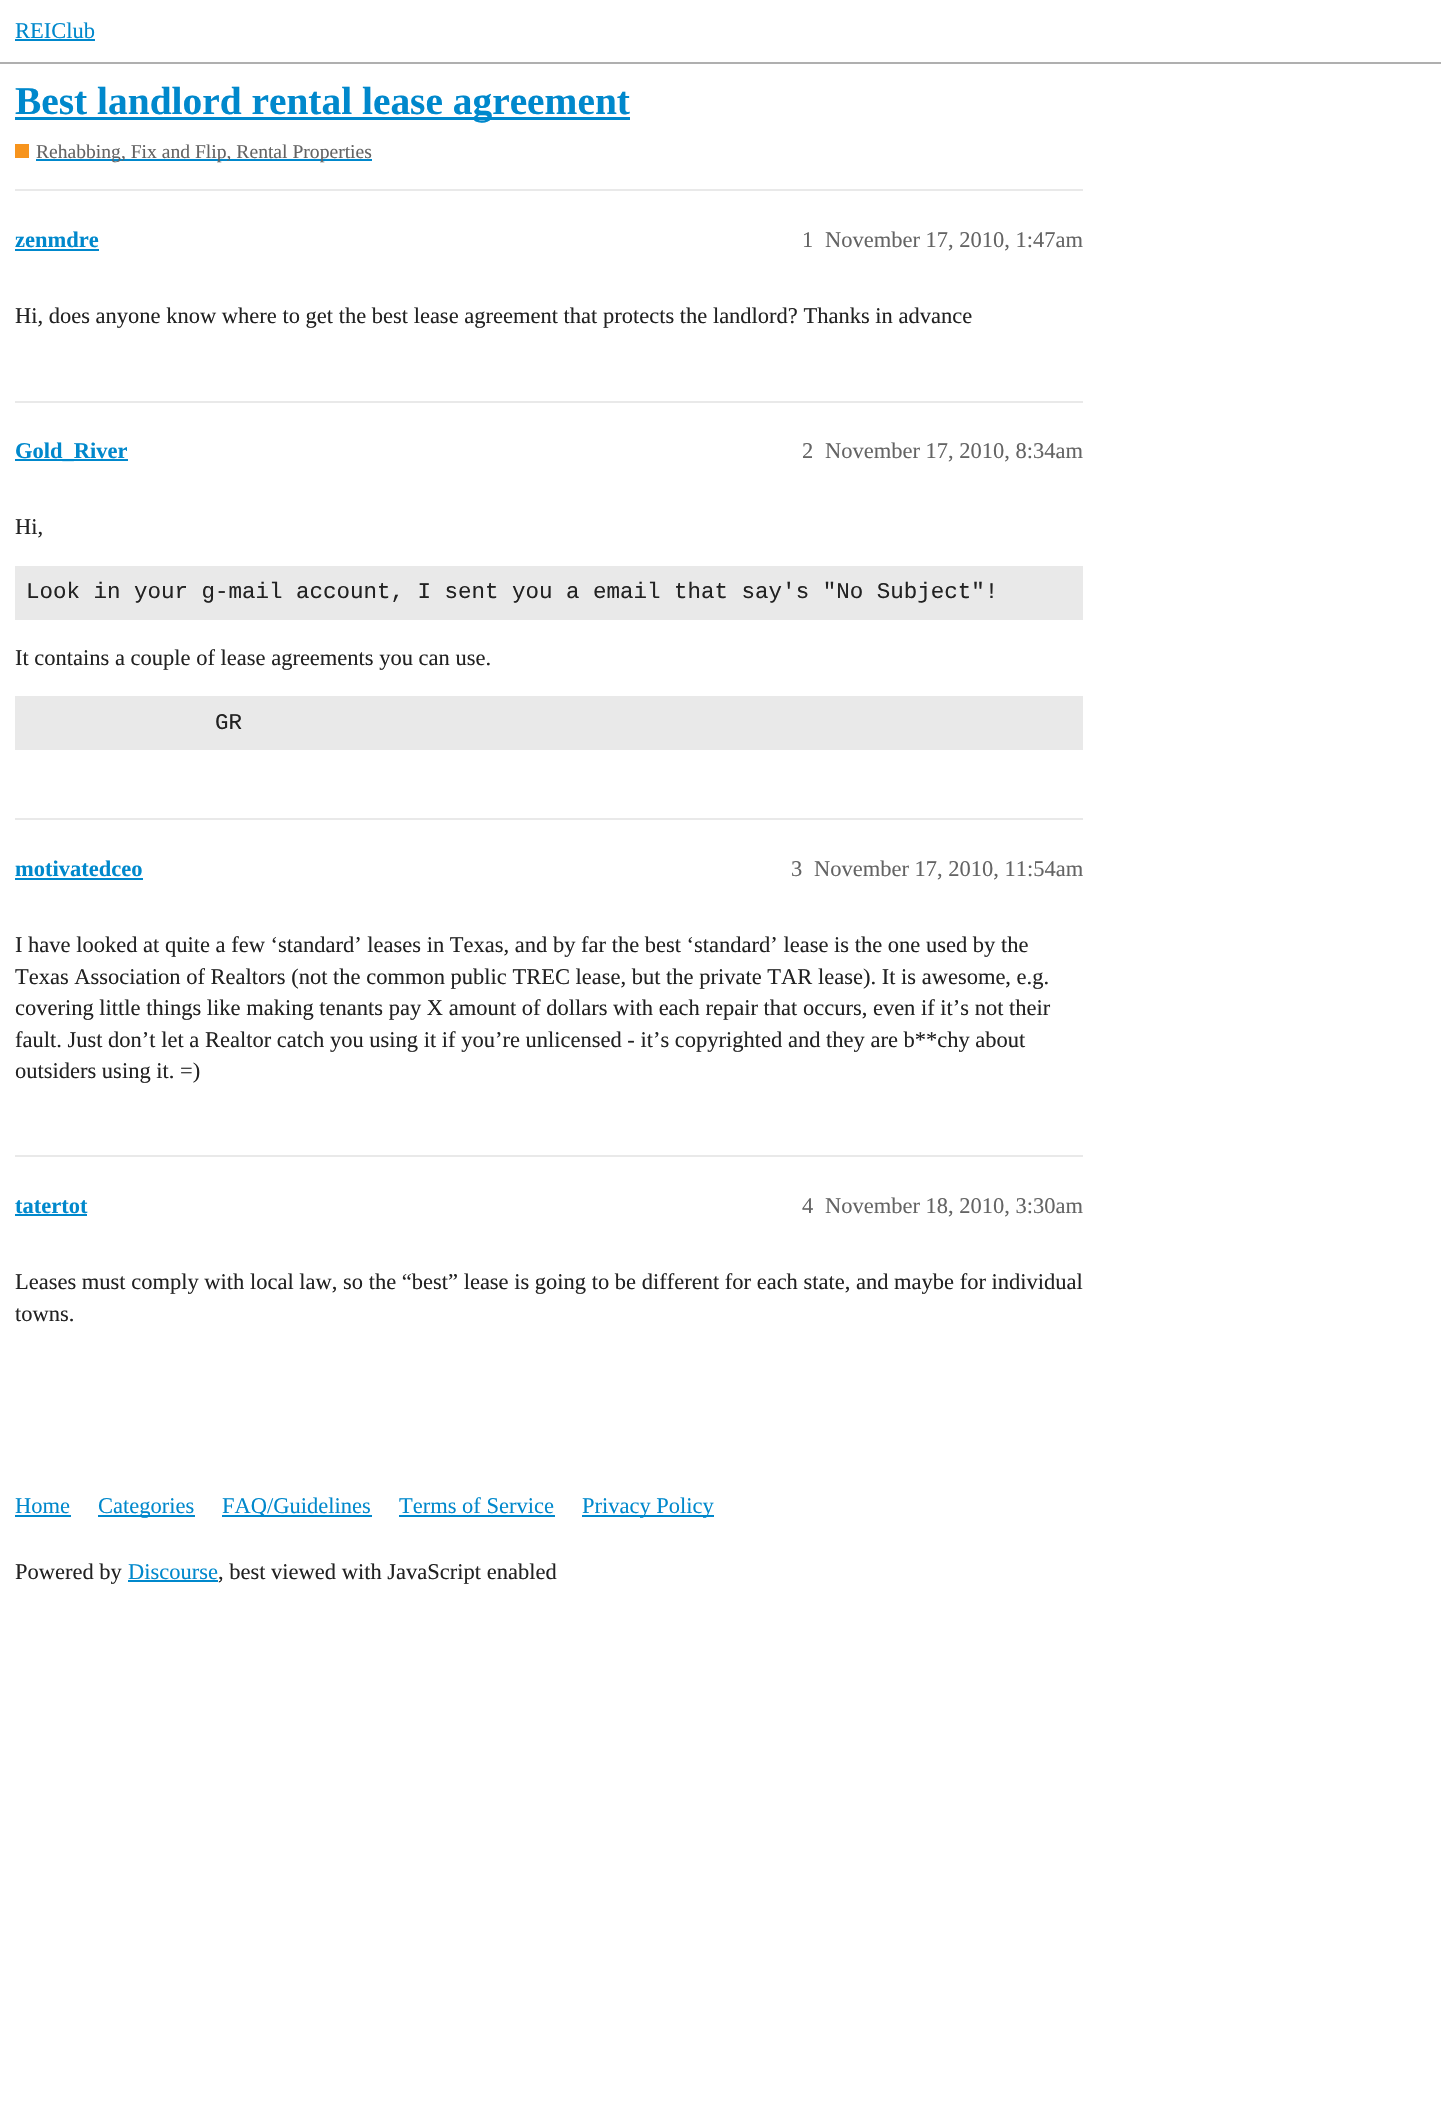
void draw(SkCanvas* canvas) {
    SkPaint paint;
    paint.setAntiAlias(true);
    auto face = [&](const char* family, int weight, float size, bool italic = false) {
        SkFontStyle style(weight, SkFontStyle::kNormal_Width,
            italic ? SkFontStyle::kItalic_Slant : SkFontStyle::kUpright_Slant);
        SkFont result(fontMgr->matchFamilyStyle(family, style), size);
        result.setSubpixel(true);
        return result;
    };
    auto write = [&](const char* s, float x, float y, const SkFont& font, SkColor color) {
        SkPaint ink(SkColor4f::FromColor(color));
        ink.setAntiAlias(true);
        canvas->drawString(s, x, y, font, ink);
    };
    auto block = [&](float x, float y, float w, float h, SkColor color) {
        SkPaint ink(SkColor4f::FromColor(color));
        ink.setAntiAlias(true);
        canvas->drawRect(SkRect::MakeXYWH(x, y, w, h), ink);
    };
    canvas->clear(SK_ColorWHITE);
    block(0, 62, 1441, 2, SkColorSetRGB(175, 175, 175));
    auto kFont1 = face("Liberation Serif", 400, 22.5f);
    write("REIClub", 15, 38, kFont1, SkColorSetRGB(0, 136, 204));
    block(15, 39, 80, 2, SkColorSetRGB(0, 136, 204));
    block(15, 117, 615, 3, SkColorSetRGB(0, 136, 204));
    auto kFont2 = face("Liberation Serif", 700, 39.4f);
    write("Best landlord rental lease agreement", 15, 114, kFont2, SkColorSetRGB(0, 136, 204));
    block(15, 144, 14, 14, SkColorSetRGB(247, 148, 29));
    block(36, 159, 336, 2, SkColorSetRGB(0, 136, 204));
    auto kFont3 = face("Liberation Serif", 400, 19.6f);
    write("Rehabbing, Fix and Flip, Rental Properties", 36, 158, kFont3, SkColorSetRGB(100, 100, 100));
    block(15, 189, 1068, 2, SkColorSetRGB(233, 233, 233));
    auto kFont4 = face("Liberation Serif", 700, 22.5f);
    write("zenmdre", 15, 247, kFont4, SkColorSetRGB(0, 136, 204));
    block(15, 249, 84, 2, SkColorSetRGB(0, 136, 204));
    write("1", 802, 247, kFont1, SkColorSetRGB(100, 100, 100));
    write("November 17, 2010, 1:47am", 825, 247, kFont1, SkColorSetRGB(100, 100, 100));
    write("Hi, does anyone know where to get the best lease agreement that protects the landlord? Thanks in advance", 15, 323, kFont1, SkColorSetRGB(34, 34, 34));
    block(15, 401, 1068, 2, SkColorSetRGB(233, 233, 233));
    block(15, 459, 113, 2, SkColorSetRGB(0, 136, 204));
    write("Gold_River", 15, 458, kFont4, SkColorSetRGB(0, 136, 204));
    write("2", 802, 458, kFont1, SkColorSetRGB(100, 100, 100));
    write("November 17, 2010, 8:34am", 825, 458, kFont1, SkColorSetRGB(100, 100, 100));
    write("Hi,", 15, 534, kFont1, SkColorSetRGB(34, 34, 34));
    block(15, 566, 1068, 54, SkColorSetRGB(233, 233, 233));
    auto kFont5 = face("Liberation Mono", 400, 22.5f);
    write("Look in your g-mail account, I sent you a email that say's \"No Subject\"!", 26, 598, kFont5, SkColorSetRGB(34, 34, 34));
    write("It contains a couple of lease agreements you can use.", 15, 665, kFont1, SkColorSetRGB(34, 34, 34));
    block(15, 696, 1068, 54, SkColorSetRGB(233, 233, 233));
    write("GR", 215, 729, kFont5, SkColorSetRGB(34, 34, 34));
    block(15, 818, 1068, 2, SkColorSetRGB(233, 233, 233));
    write("motivatedceo", 15, 876, kFont4, SkColorSetRGB(0, 136, 204));
    block(15, 878, 128, 2, SkColorSetRGB(0, 136, 204));
    write("3", 791, 876, kFont1, SkColorSetRGB(100, 100, 100));
    write("November 17, 2010, 11:54am", 814, 876, kFont1, SkColorSetRGB(100, 100, 100));
    write("I have looked at quite a few ‘standard’ leases in Texas, and by far the best ‘standard’ lease is the one used by the", 15, 952, kFont1, SkColorSetRGB(34, 34, 34));
    write("Texas Association of Realtors (not the common public TREC lease, but the private TAR lease). It is awesome, e.g.", 15, 984, kFont1, SkColorSetRGB(34, 34, 34));
    write("covering little things like making tenants pay X amount of dollars with each repair that occurs, even if it’s not their", 15, 1015, kFont1, SkColorSetRGB(34, 34, 34));
    write("fault. Just don’t let a Realtor catch you using it if you’re unlicensed - it’s copyrighted and they are b**chy about", 15, 1047, kFont1, SkColorSetRGB(34, 34, 34));
    write("outsiders using it. =)", 15, 1078, kFont1, SkColorSetRGB(34, 34, 34));
    block(15, 1155, 1068, 2, SkColorSetRGB(233, 233, 233));
    write("tatertot", 15, 1213, kFont4, SkColorSetRGB(0, 136, 204));
    block(15, 1214, 72, 2, SkColorSetRGB(0, 136, 204));
    write("4", 802, 1213, kFont1, SkColorSetRGB(100, 100, 100));
    write("November 18, 2010, 3:30am", 825, 1213, kFont1, SkColorSetRGB(100, 100, 100));
    write("Leases must comply with local law, so the “best” lease is going to be different for each state, and maybe for individual", 15, 1289, kFont1, SkColorSetRGB(34, 34, 34));
    write("towns.", 15, 1321, kFont1, SkColorSetRGB(34, 34, 34));
    write("Home", 15, 1513, kFont1, SkColorSetRGB(0, 136, 204));
    block(15, 1515, 56, 2, SkColorSetRGB(0, 136, 204));
    block(98, 1515, 97, 2, SkColorSetRGB(0, 136, 204));
    write("Categories", 98, 1513, kFont1, SkColorSetRGB(0, 136, 204));
    block(222, 1515, 150, 2, SkColorSetRGB(0, 136, 204));
    write("FAQ/Guidelines", 222, 1513, kFont1, SkColorSetRGB(0, 136, 204));
    write("Terms of Service", 399, 1513, kFont1, SkColorSetRGB(0, 136, 204));
    block(399, 1515, 156, 2, SkColorSetRGB(0, 136, 204));
    block(582, 1515, 132, 2, SkColorSetRGB(0, 136, 204));
    write("Privacy Policy", 582, 1513, kFont1, SkColorSetRGB(0, 136, 204));
    write("Powered by", 15, 1579, kFont1, SkColorSetRGB(34, 34, 34));
    write("Discourse", 128, 1579, kFont1, SkColorSetRGB(0, 136, 204));
    block(128, 1580, 90, 2, SkColorSetRGB(0, 136, 204));
    write(", best viewed with JavaScript enabled", 218, 1579, kFont1, SkColorSetRGB(34, 34, 34));
}
